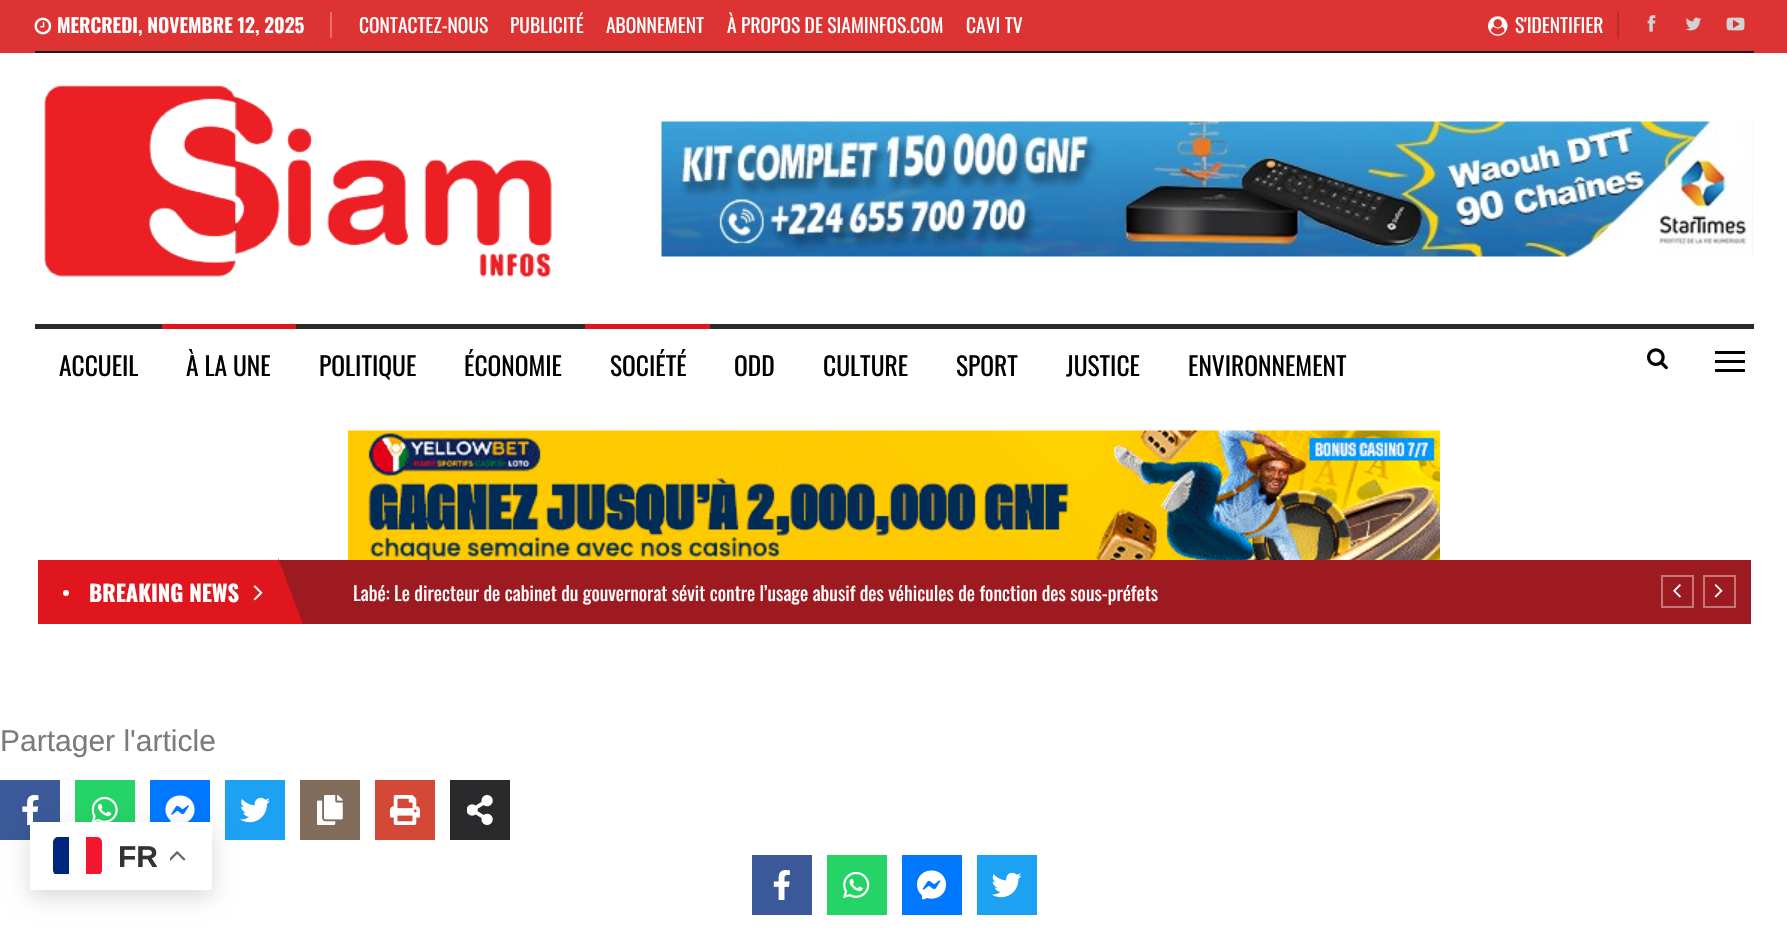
void draw(SkCanvas* canvas) {
    SkPaint paint;
    paint.setAntiAlias(true);
    auto face = [&](const char* family, int weight, float size, bool italic = false) {
        SkFontStyle style(weight, SkFontStyle::kNormal_Width,
            italic ? SkFontStyle::kItalic_Slant : SkFontStyle::kUpright_Slant);
        SkFont result(fontMgr->matchFamilyStyle(family, style), size);
        result.setSubpixel(true);
        return result;
    };
    auto write = [&](const char* s, float x, float y, const SkFont& font, SkColor color) {
        SkPaint ink(SkColor4f::FromColor(color));
        ink.setAntiAlias(true);
        canvas->drawString(s, x, y, font, ink);
    };
    auto block = [&](float x, float y, float w, float h, SkColor color) {
        SkPaint ink(SkColor4f::FromColor(color));
        ink.setAntiAlias(true);
        canvas->drawRect(SkRect::MakeXYWH(x, y, w, h), ink);
    };
    auto card = [&](float x, float y, float w, float h, float radius, SkColor color) {
        SkPaint ink(SkColor4f::FromColor(color));
        ink.setAntiAlias(true);
        canvas->drawRoundRect(SkRect::MakeXYWH(x, y, w, h), radius, radius, ink);
    };
    auto paste = [&](const char* path, float x, float y, float w, float h) {
        auto image = SkImages::DeferredFromEncodedData(SkData::MakeFromFileName(path));
        canvas->drawImageRect(image, SkRect::MakeXYWH(x, y, w, h), SkSamplingOptions());
    };
    canvas->clear(SK_ColorWHITE);
    block(0, 0, 1787, 53, SkColorSetRGB(221, 51, 51));
    block(35, 51, 1719, 2, SkColorSetRGB(29, 29, 29));
    paste("pic1.png", 34, 17, 18, 18);
    auto kFont1 = face("Oswald", 600, 19.5f);
    write("MERCREDI, NOVEMBRE 12, 2025", 57, 33, kFont1, SK_ColorWHITE);
    block(330, 12, 2, 26, SkColorSetRGB(231, 112, 112));
    auto kFont2 = face("Oswald", 400, 19.5f);
    write("CONTACTEZ-NOUS", 359, 33, kFont2, SK_ColorWHITE);
    write("PUBLICITÉ", 510, 33, kFont2, SK_ColorWHITE);
    write("ABONNEMENT", 606, 33, kFont2, SK_ColorWHITE);
    write("À PROPOS DE SIAMINFOS.COM", 727, 33, kFont2, SK_ColorWHITE);
    write("CAVI TV", 966, 33, kFont2, SK_ColorWHITE);
    paste("pic2.png", 1488, 16, 20, 20);
    write("S'IDENTIFIER", 1515, 33, kFont2, SK_ColorWHITE);
    block(1617, 12, 2, 27, SkColorSetRGB(188, 43, 43));
    paste("pic3.png", 1647, 15, 9, 17);
    paste("pic4.png", 1685, 17, 17, 14);
    paste("pic5.png", 1726, 17, 19, 14);
    paste("pic6.png", 44, 85, 508, 192);
    paste("pic7.png", 661, 121, 1093, 136);
    block(35, 324, 1719, 5, SkColorSetRGB(42, 42, 42));
    auto kFont3 = face("Oswald", 400, 25.5f);
    write("ACCUEIL", 59, 376, kFont3, SkColorSetRGB(1, 1, 1));
    block(162, 324, 134, 5, SkColorSetRGB(223, 22, 30));
    write("À LA UNE", 186, 376, kFont3, SkColorSetRGB(1, 1, 1));
    write("POLITIQUE", 319, 376, kFont3, SkColorSetRGB(1, 1, 1));
    write("ÉCONOMIE", 464, 376, kFont3, SkColorSetRGB(1, 1, 1));
    block(585, 324, 125, 5, SkColorSetRGB(223, 22, 30));
    write("SOCIÉTÉ", 610, 376, kFont3, SkColorSetRGB(1, 1, 1));
    write("ODD", 734, 376, kFont3, SkColorSetRGB(1, 1, 1));
    write("CULTURE", 823, 376, kFont3, SkColorSetRGB(1, 1, 1));
    write("SPORT", 956, 376, kFont3, SkColorSetRGB(1, 1, 1));
    write("JUSTICE", 1066, 376, kFont3, SkColorSetRGB(1, 1, 1));
    write("ENVIRONNEMENT", 1188, 376, kFont3, SkColorSetRGB(1, 1, 1));
    paste("pic8.png", 1647, 348, 21, 22);
    block(1715, 360, 30, 3, SkColorSetRGB(1, 1, 1));
    block(1715, 351, 30, 3, SkColorSetRGB(1, 1, 1));
    block(1715, 369, 30, 3, SkColorSetRGB(1, 1, 1));
    paste("pic9.png", 348, 430, 1092, 130);
    block(278, 560, 1473, 64, SkColorSetRGB(157, 26, 32));
    block(38, 560, 240, 64, SkColorSetRGB(223, 22, 30));
    paint.setColor(SK_ColorWHITE);
    canvas->drawCircle(66, 593, 3, paint);
    auto kFont4 = face("Oswald", 700, 22.5f);
    write("BREAKING NEWS", 89, 602, kFont4, SK_ColorWHITE);
    paste("pic10.png", 253, 585, 10, 16);
    paint.setColor(SkColorSetRGB(223, 22, 30));
    canvas->drawPath(SkPathBuilder().moveTo(278, 624).lineTo(278, 558).lineTo(303, 624).close().detach(), paint);
    write("Labé: Le directeur de cabinet du gouvernorat sévit contre l’usage abusif des véhicules de fonction des sous-préfets", 353, 601, kFont2, SK_ColorWHITE);
    paint.setStyle(SkPaint::kStroke_Style);
    paint.setStrokeWidth(2);
    paint.setColor(SkColorSetRGB(196, 118, 121));
    canvas->drawRect(SkRect::MakeXYWH(1662, 576, 31, 31), paint);
    paste("pic11.png", 1673, 584, 8, 14);
    canvas->drawRect(SkRect::MakeXYWH(1704, 576, 31, 31), paint);
    paste("pic12.png", 1714, 584, 9, 14);
    auto kFont5 = face("Arimo", 400, 30);
    write("Partager l'article", 0, 751, kFont5, SkColorSetRGB(123, 123, 123));
    block(0, 780, 60, 60, SkColorSetRGB(59, 89, 152));
    paste("pic13.png", 22, 795, 17, 30);
    block(75, 780, 60, 42, SkColorSetRGB(37, 211, 102));
    paste("pic14.png", 92, 796, 26, 26);
    block(150, 780, 60, 43, SkColorSetRGB(0, 120, 255));
    paste("pic15.png", 165, 795, 30, 27);
    block(225, 780, 60, 60, SkColorSetRGB(29, 161, 242));
    paste("pic16.png", 240, 797, 30, 26);
    block(300, 780, 60, 60, SkColorSetRGB(129, 107, 91));
    paste("pic17.png", 317, 795, 26, 30);
    block(375, 780, 60, 60, SkColorSetRGB(211, 72, 54));
    paste("pic18.png", 390, 795, 30, 30);
    block(450, 780, 60, 60, SkColorSetRGB(42, 42, 44));
    paste("pic19.png", 467, 795, 26, 30);
    paint.setStyle(SkPaint::kFill_Style);
    paint.setColor(SkColorSetARGB(38, 0, 0, 0));
    paint.setMaskFilter(SkMaskFilter::MakeBlur(kNormal_SkBlurStyle, 11));
    canvas->drawRoundRect(SkRect::MakeXYWH(30, 830, 182, 67), 3, 3, paint);
    paint.setMaskFilter(nullptr);
    card(30, 822, 182, 68, 3, SK_ColorWHITE);
    canvas->save();
    canvas->clipPath(SkPathBuilder().moveTo(58, 837).lineTo(97, 837).cubicTo(100, 837, 102, 839, 102, 842).lineTo(102, 870).cubicTo(102, 873, 100, 875, 97, 875).lineTo(58, 875).cubicTo(55, 875, 53, 873, 53, 870).lineTo(53, 842).cubicTo(53, 839, 55, 837, 58, 837).close().detach(), true);
    paint.setColor(SkColorSetRGB(0, 38, 127));
    canvas->drawPath(SkPathBuilder().moveTo(58, 837).lineTo(69, 837).lineTo(69, 874).lineTo(53, 874).lineTo(53, 842).cubicTo(53, 839, 55, 837, 58, 837).close().detach(), paint);
    paint.setColor(SkColorSetRGB(243, 24, 48));
    canvas->drawPath(SkPathBuilder().moveTo(86, 837).lineTo(97, 837).cubicTo(100, 837, 102, 839, 102, 842).lineTo(102, 874).lineTo(86, 874).close().detach(), paint);
    canvas->restore();
    auto kFont6 = face("Liberation Sans", 700, 30);
    write("FR", 118, 867, kFont6, SkColorSetRGB(51, 51, 51));
    paste("pic20.png", 170, 851, 16, 10);
    block(752, 855, 60, 60, SkColorSetRGB(59, 89, 152));
    paste("pic21.png", 773, 870, 17, 30);
    block(827, 855, 60, 60, SkColorSetRGB(37, 211, 102));
    paste("pic22.png", 843, 871, 27, 28);
    block(902, 855, 60, 60, SkColorSetRGB(0, 120, 255));
    paste("pic23.png", 917, 870, 29, 30);
    block(977, 855, 60, 60, SkColorSetRGB(29, 161, 242));
    paste("pic24.png", 992, 872, 30, 26);
}
